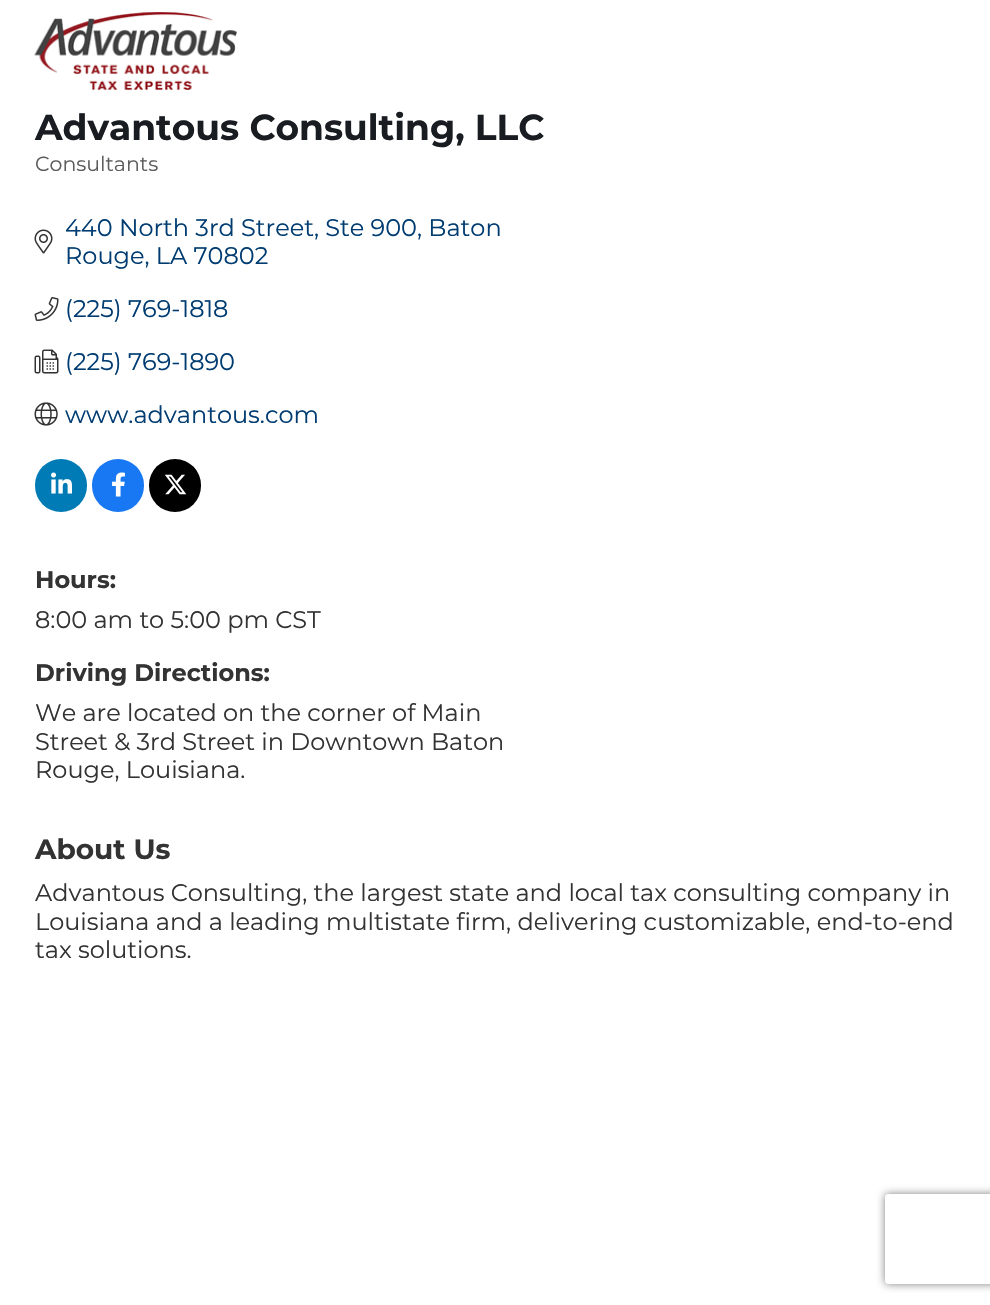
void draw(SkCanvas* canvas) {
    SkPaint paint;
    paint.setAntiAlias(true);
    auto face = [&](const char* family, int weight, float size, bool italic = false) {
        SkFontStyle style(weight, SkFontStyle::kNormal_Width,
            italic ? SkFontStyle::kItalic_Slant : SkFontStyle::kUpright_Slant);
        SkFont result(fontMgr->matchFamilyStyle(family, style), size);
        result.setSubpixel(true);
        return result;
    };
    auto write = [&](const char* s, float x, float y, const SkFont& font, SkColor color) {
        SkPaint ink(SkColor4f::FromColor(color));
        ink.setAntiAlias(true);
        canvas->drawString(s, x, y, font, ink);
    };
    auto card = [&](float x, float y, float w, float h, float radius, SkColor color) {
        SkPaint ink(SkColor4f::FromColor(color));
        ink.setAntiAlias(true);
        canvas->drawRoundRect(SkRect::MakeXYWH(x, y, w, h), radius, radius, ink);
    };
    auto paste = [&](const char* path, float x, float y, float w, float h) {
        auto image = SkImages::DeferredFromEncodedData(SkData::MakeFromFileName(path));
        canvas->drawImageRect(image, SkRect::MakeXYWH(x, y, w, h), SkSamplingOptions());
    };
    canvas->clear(SK_ColorWHITE);
    paste("pic1.png", 34, 12, 203, 79);
    auto kFont1 = face("Montserrat", 700, 36);
    write("Advantous Consulting, LLC", 35, 140, kFont1, SkColorSetRGB(25, 28, 33));
    auto kFont2 = face("Montserrat", 400, 20.5f);
    write("Consultants", 35, 171, kFont2, SkColorSetRGB(92, 92, 92));
    paste("pic2.png", 34, 229, 19, 25);
    auto kFont3 = face("Montserrat", 400, 24);
    write("440 North 3rd Street, Ste 900, Baton", 65, 236, kFont3, SkColorSetRGB(0, 60, 113));
    write("Rouge, LA 70802", 65, 264, kFont3, SkColorSetRGB(0, 60, 113));
    paste("pic3.png", 34, 297, 25, 24);
    write("(225) 769-1818", 65, 317, kFont3, SkColorSetRGB(0, 60, 113));
    paste("pic4.png", 34, 349, 25, 25);
    write("(225) 769-1890", 65, 370, kFont3, SkColorSetRGB(0, 60, 113));
    paste("pic5.png", 34, 402, 24, 24);
    write("www.advantous.com", 65, 423, kFont3, SkColorSetRGB(0, 60, 113));
    card(35, 459, 52, 53, 26, SkColorSetRGB(0, 123, 181));
    paste("pic6.png", 51, 472, 21, 22);
    card(92, 459, 52, 53, 26, SkColorSetRGB(24, 119, 242));
    paste("pic7.png", 112, 472, 13, 25);
    card(149, 459, 52, 53, 26, SK_ColorBLACK);
    paste("pic8.png", 164, 474, 23, 21);
    auto kFont4 = face("Montserrat", 700, 24);
    write("Hours:", 35, 588, kFont4, SkColorSetRGB(51, 51, 51));
    write("8:00 am to 5:00 pm CST", 35, 628, kFont3, SkColorSetRGB(51, 51, 51));
    write("Driving Directions:", 35, 681, kFont4, SkColorSetRGB(51, 51, 51));
    write("We are located on the corner of Main", 35, 721, kFont3, SkColorSetRGB(51, 51, 51));
    write("Street & 3rd Street in Downtown Baton", 35, 750, kFont3, SkColorSetRGB(51, 51, 51));
    write("Rouge, Louisiana.", 35, 778, kFont3, SkColorSetRGB(51, 51, 51));
    auto kFont5 = face("Montserrat", 700, 28);
    write("About Us", 35, 859, kFont5, SkColorSetRGB(51, 51, 51));
    write("Advantous Consulting, the largest state and local tax consulting company in", 35, 901, kFont3, SkColorSetRGB(51, 51, 51));
    write("Louisiana and a leading multistate firm, delivering customizable, end-to-end", 35, 930, kFont3, SkColorSetRGB(51, 51, 51));
    write("tax solutions.", 35, 958, kFont3, SkColorSetRGB(51, 51, 51));
    canvas->save();
    canvas->clipPath(SkPathBuilder(SkPathFillType::kEvenOdd).moveTo(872, 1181).lineTo(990, 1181).lineTo(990, 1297).lineTo(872, 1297).close().moveTo(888, 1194).lineTo(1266, 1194).cubicTo(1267.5f, 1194, 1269, 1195.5f, 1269, 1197).lineTo(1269, 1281).cubicTo(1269, 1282.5f, 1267.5f, 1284, 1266, 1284).lineTo(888, 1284).cubicTo(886.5f, 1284, 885, 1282.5f, 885, 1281).lineTo(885, 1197).cubicTo(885, 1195.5f, 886.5f, 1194, 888, 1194).close().detach(), true);
    paint.setColor(SkColorSetRGB(128, 128, 128));
    paint.setMaskFilter(SkMaskFilter::MakeBlur(kNormal_SkBlurStyle, 4));
    canvas->drawRoundRect(SkRect::MakeXYWH(885, 1194, 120, 90), 3, 3, paint);
    paint.setMaskFilter(nullptr);
    canvas->restore();
}
